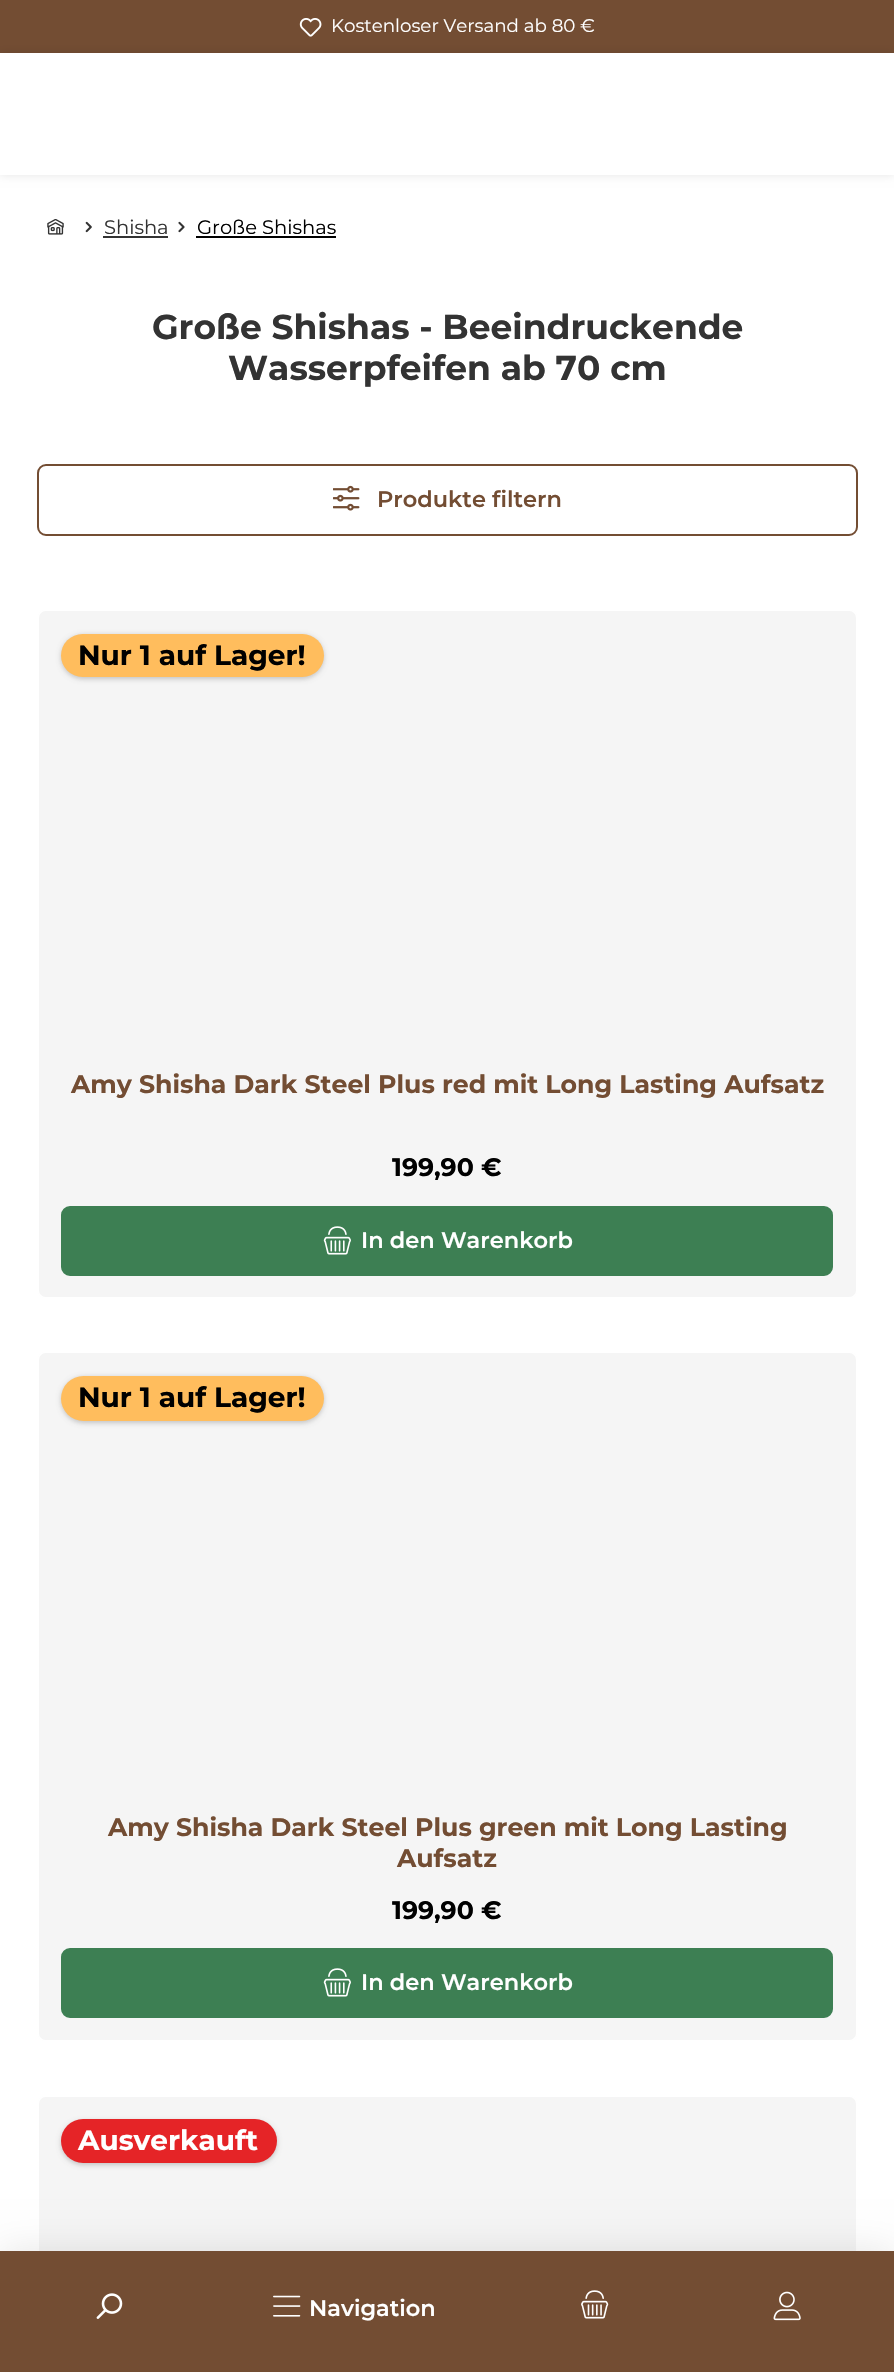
void draw(SkCanvas* canvas) {
    SkPaint paint;
    paint.setAntiAlias(true);
    auto face = [&](const char* family, int weight, float size, bool italic = false) {
        SkFontStyle style(weight, SkFontStyle::kNormal_Width,
            italic ? SkFontStyle::kItalic_Slant : SkFontStyle::kUpright_Slant);
        SkFont result(fontMgr->matchFamilyStyle(family, style), size);
        result.setSubpixel(true);
        return result;
    };
    auto write = [&](const char* s, float x, float y, const SkFont& font, SkColor color) {
        SkPaint ink(SkColor4f::FromColor(color));
        ink.setAntiAlias(true);
        canvas->drawString(s, x, y, font, ink);
    };
    auto block = [&](float x, float y, float w, float h, SkColor color) {
        SkPaint ink(SkColor4f::FromColor(color));
        ink.setAntiAlias(true);
        canvas->drawRect(SkRect::MakeXYWH(x, y, w, h), ink);
    };
    auto card = [&](float x, float y, float w, float h, float radius, SkColor color) {
        SkPaint ink(SkColor4f::FromColor(color));
        ink.setAntiAlias(true);
        canvas->drawRoundRect(SkRect::MakeXYWH(x, y, w, h), radius, radius, ink);
    };
    auto paste = [&](const char* path, float x, float y, float w, float h) {
        auto image = SkImages::DeferredFromEncodedData(SkData::MakeFromFileName(path));
        canvas->drawImageRect(image, SkRect::MakeXYWH(x, y, w, h), SkSamplingOptions());
    };
    canvas->clear(SK_ColorWHITE);
    block(0, 0, 894, 53, SkColorSetRGB(115, 77, 51));
    paste("pic1.png", 299, 18, 23, 19);
    auto kFont1 = face("Montserrat", 100, 18.25f);
    write("Kostenloser Versand ab 80 €", 331, 32, kFont1, SK_ColorWHITE);
    paste("pic2.png", 47, 219, 17, 16);
    paste("pic3.png", 85, 221, 7, 12);
    auto kFont2 = face("Montserrat", 100, 19.5f);
    write("Shisha", 104, 234, kFont2, SkColorSetRGB(51, 51, 51));
    block(103, 236, 65, 2, SkColorSetRGB(51, 51, 51));
    paste("pic4.png", 178, 221, 7, 12);
    write("Große Shishas", 197, 234, kFont2, SK_ColorBLACK);
    block(196, 236, 140, 2, SK_ColorBLACK);
    auto kFont3 = face("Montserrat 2", 100, 34.5f);
    write("Große Shishas - Beeindruckende", 152, 339, kFont3, SkColorSetRGB(51, 51, 51));
    write("Wasserpfeifen ab 70 cm", 228, 380, kFont3, SkColorSetRGB(51, 51, 51));
    paint.setStyle(SkPaint::kStroke_Style);
    paint.setStrokeWidth(2);
    paint.setColor(SkColorSetRGB(115, 77, 51));
    canvas->drawRoundRect(SkRect::MakeXYWH(38, 465, 819, 70), 8, 8, paint);
    paste("pic5.png", 333, 485, 27, 26);
    auto kFont4 = face("Montserrat", 600, 22.5f);
    write("Produkte filtern", 377, 507, kFont4, SkColorSetRGB(115, 77, 51));
    paint.setStyle(SkPaint::kFill_Style);
    paint.setColor(SkColorSetRGB(245, 245, 245));
    canvas->drawRoundRect(SkRect::MakeXYWH(38, 610, 819, 688), 8, 8, paint);
    paint.setStyle(SkPaint::kStroke_Style);
    paint.setColor(SK_ColorWHITE);
    canvas->drawRoundRect(SkRect::MakeXYWH(38, 610, 819, 688), 8, 8, paint);
    paint.setStyle(SkPaint::kFill_Style);
    paint.setColor(SkColorSetARGB(26, 0, 0, 0));
    paint.setMaskFilter(SkMaskFilter::MakeBlur(kNormal_SkBlurStyle, 2));
    canvas->drawRoundRect(SkRect::MakeXYWH(61, 635, 263, 44), 22, 22, paint);
    paint.setMaskFilter(nullptr);
    paint.setMaskFilter(SkMaskFilter::MakeBlur(kNormal_SkBlurStyle, 2.5f));
    canvas->drawRoundRect(SkRect::MakeXYWH(61, 635, 263, 44), 22, 22, paint);
    paint.setMaskFilter(nullptr);
    card(61, 634, 263, 43, 21.5f, SkColorSetRGB(255, 189, 93));
    auto kFont5 = face("Montserrat 2", 100, 28);
    write("Nur 1 auf Lager!", 78, 665, kFont5, SK_ColorBLACK);
    auto kFont6 = face("Montserrat 2", 100, 25.2f);
    write("Amy Shisha Dark Steel Plus red mit Long Lasting Aufsatz", 71, 1093, kFont6, SkColorSetRGB(115, 77, 51));
    write("199,90 €", 392, 1176, kFont6, SK_ColorBLACK);
    paint.setColor(SkColorSetRGB(61, 127, 83));
    canvas->drawRoundRect(SkRect::MakeXYWH(62, 1207, 770, 68), 8, 8, paint);
    paint.setStyle(SkPaint::kStroke_Style);
    canvas->drawRoundRect(SkRect::MakeXYWH(62, 1207, 770, 68), 8, 8, paint);
    paste("pic6.png", 323, 1226, 28, 29);
    write("In den Warenkorb", 361, 1248, kFont4, SK_ColorWHITE);
    paint.setStyle(SkPaint::kFill_Style);
    paint.setColor(SkColorSetRGB(245, 245, 245));
    canvas->drawRoundRect(SkRect::MakeXYWH(38, 1352, 819, 689), 8, 8, paint);
    paint.setStyle(SkPaint::kStroke_Style);
    paint.setColor(SK_ColorWHITE);
    canvas->drawRoundRect(SkRect::MakeXYWH(38, 1352, 819, 689), 8, 8, paint);
    paint.setStyle(SkPaint::kFill_Style);
    paint.setColor(SkColorSetARGB(26, 0, 0, 0));
    paint.setMaskFilter(SkMaskFilter::MakeBlur(kNormal_SkBlurStyle, 2));
    canvas->drawRoundRect(SkRect::MakeXYWH(61, 1377, 263, 46), 23, 23, paint);
    paint.setMaskFilter(nullptr);
    paint.setMaskFilter(SkMaskFilter::MakeBlur(kNormal_SkBlurStyle, 2.5f));
    canvas->drawRoundRect(SkRect::MakeXYWH(61, 1377, 263, 46), 23, 23, paint);
    paint.setMaskFilter(nullptr);
    card(61, 1376, 263, 45, 22.5f, SkColorSetRGB(255, 189, 93));
    write("Nur 1 auf Lager!", 78, 1407, kFont5, SK_ColorBLACK);
    write("Amy Shisha Dark Steel Plus green mit Long Lasting", 108, 1836, kFont6, SkColorSetRGB(115, 77, 51));
    write("Aufsatz", 397, 1867, kFont6, SkColorSetRGB(115, 77, 51));
    write("199,90 €", 392, 1919, kFont6, SK_ColorBLACK);
    paint.setColor(SkColorSetRGB(61, 127, 83));
    canvas->drawRoundRect(SkRect::MakeXYWH(62, 1949, 770, 68), 8, 8, paint);
    paint.setStyle(SkPaint::kStroke_Style);
    canvas->drawRoundRect(SkRect::MakeXYWH(62, 1949, 770, 68), 8, 8, paint);
    paste("pic6.png", 323, 1968, 28, 29);
    write("In den Warenkorb", 361, 1990, kFont4, SK_ColorWHITE);
    paint.setStyle(SkPaint::kFill_Style);
    paint.setColor(SkColorSetRGB(245, 245, 245));
    canvas->drawRoundRect(SkRect::MakeXYWH(38, 2096, 819, 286), 8, 8, paint);
    paint.setStyle(SkPaint::kStroke_Style);
    paint.setColor(SK_ColorWHITE);
    canvas->drawRoundRect(SkRect::MakeXYWH(38, 2096, 819, 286), 8, 8, paint);
    paint.setStyle(SkPaint::kFill_Style);
    paint.setColor(SkColorSetARGB(26, 0, 0, 0));
    paint.setMaskFilter(SkMaskFilter::MakeBlur(kNormal_SkBlurStyle, 2));
    canvas->drawRoundRect(SkRect::MakeXYWH(61, 2121, 216, 44), 22, 22, paint);
    paint.setMaskFilter(nullptr);
    paint.setMaskFilter(SkMaskFilter::MakeBlur(kNormal_SkBlurStyle, 2.5f));
    canvas->drawRoundRect(SkRect::MakeXYWH(61, 2121, 216, 44), 22, 22, paint);
    paint.setMaskFilter(nullptr);
    card(61, 2119, 216, 44, 22, SkColorSetRGB(229, 36, 39));
    write("Ausverkauft", 78, 2150, kFont5, SK_ColorWHITE);
    canvas->save();
    canvas->clipPath(SkPathBuilder(SkPathFillType::kEvenOdd).moveTo(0, 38).lineTo(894, 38).lineTo(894, 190).lineTo(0, 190).close().moveTo(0, 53).lineTo(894, 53).lineTo(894, 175).lineTo(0, 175).close().detach(), true);
    paint.setMaskFilter(SkMaskFilter::MakeBlur(kNormal_SkBlurStyle, 4.5f));
    canvas->drawRect(SkRect::MakeXYWH(0, 53, 894, 122), paint);
    paint.setMaskFilter(nullptr);
    canvas->restore();
    paint.setMaskFilter(SkMaskFilter::MakeBlur(kNormal_SkBlurStyle, 17.5f));
    canvas->drawRect(SkRect::MakeXYWH(0, 2251, 894, 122), paint);
    paint.setMaskFilter(nullptr);
    block(0, 2251, 894, 121, SkColorSetRGB(115, 77, 51));
    paste("pic7.png", 96, 2293, 27, 26);
    paste("pic8.png", 273, 2295, 28, 22);
    write("Navigation", 309, 2316, kFont4, SK_ColorWHITE);
    paste("pic9.png", 581, 2290, 28, 29);
    paste("pic10.png", 773, 2291, 28, 30);
}
